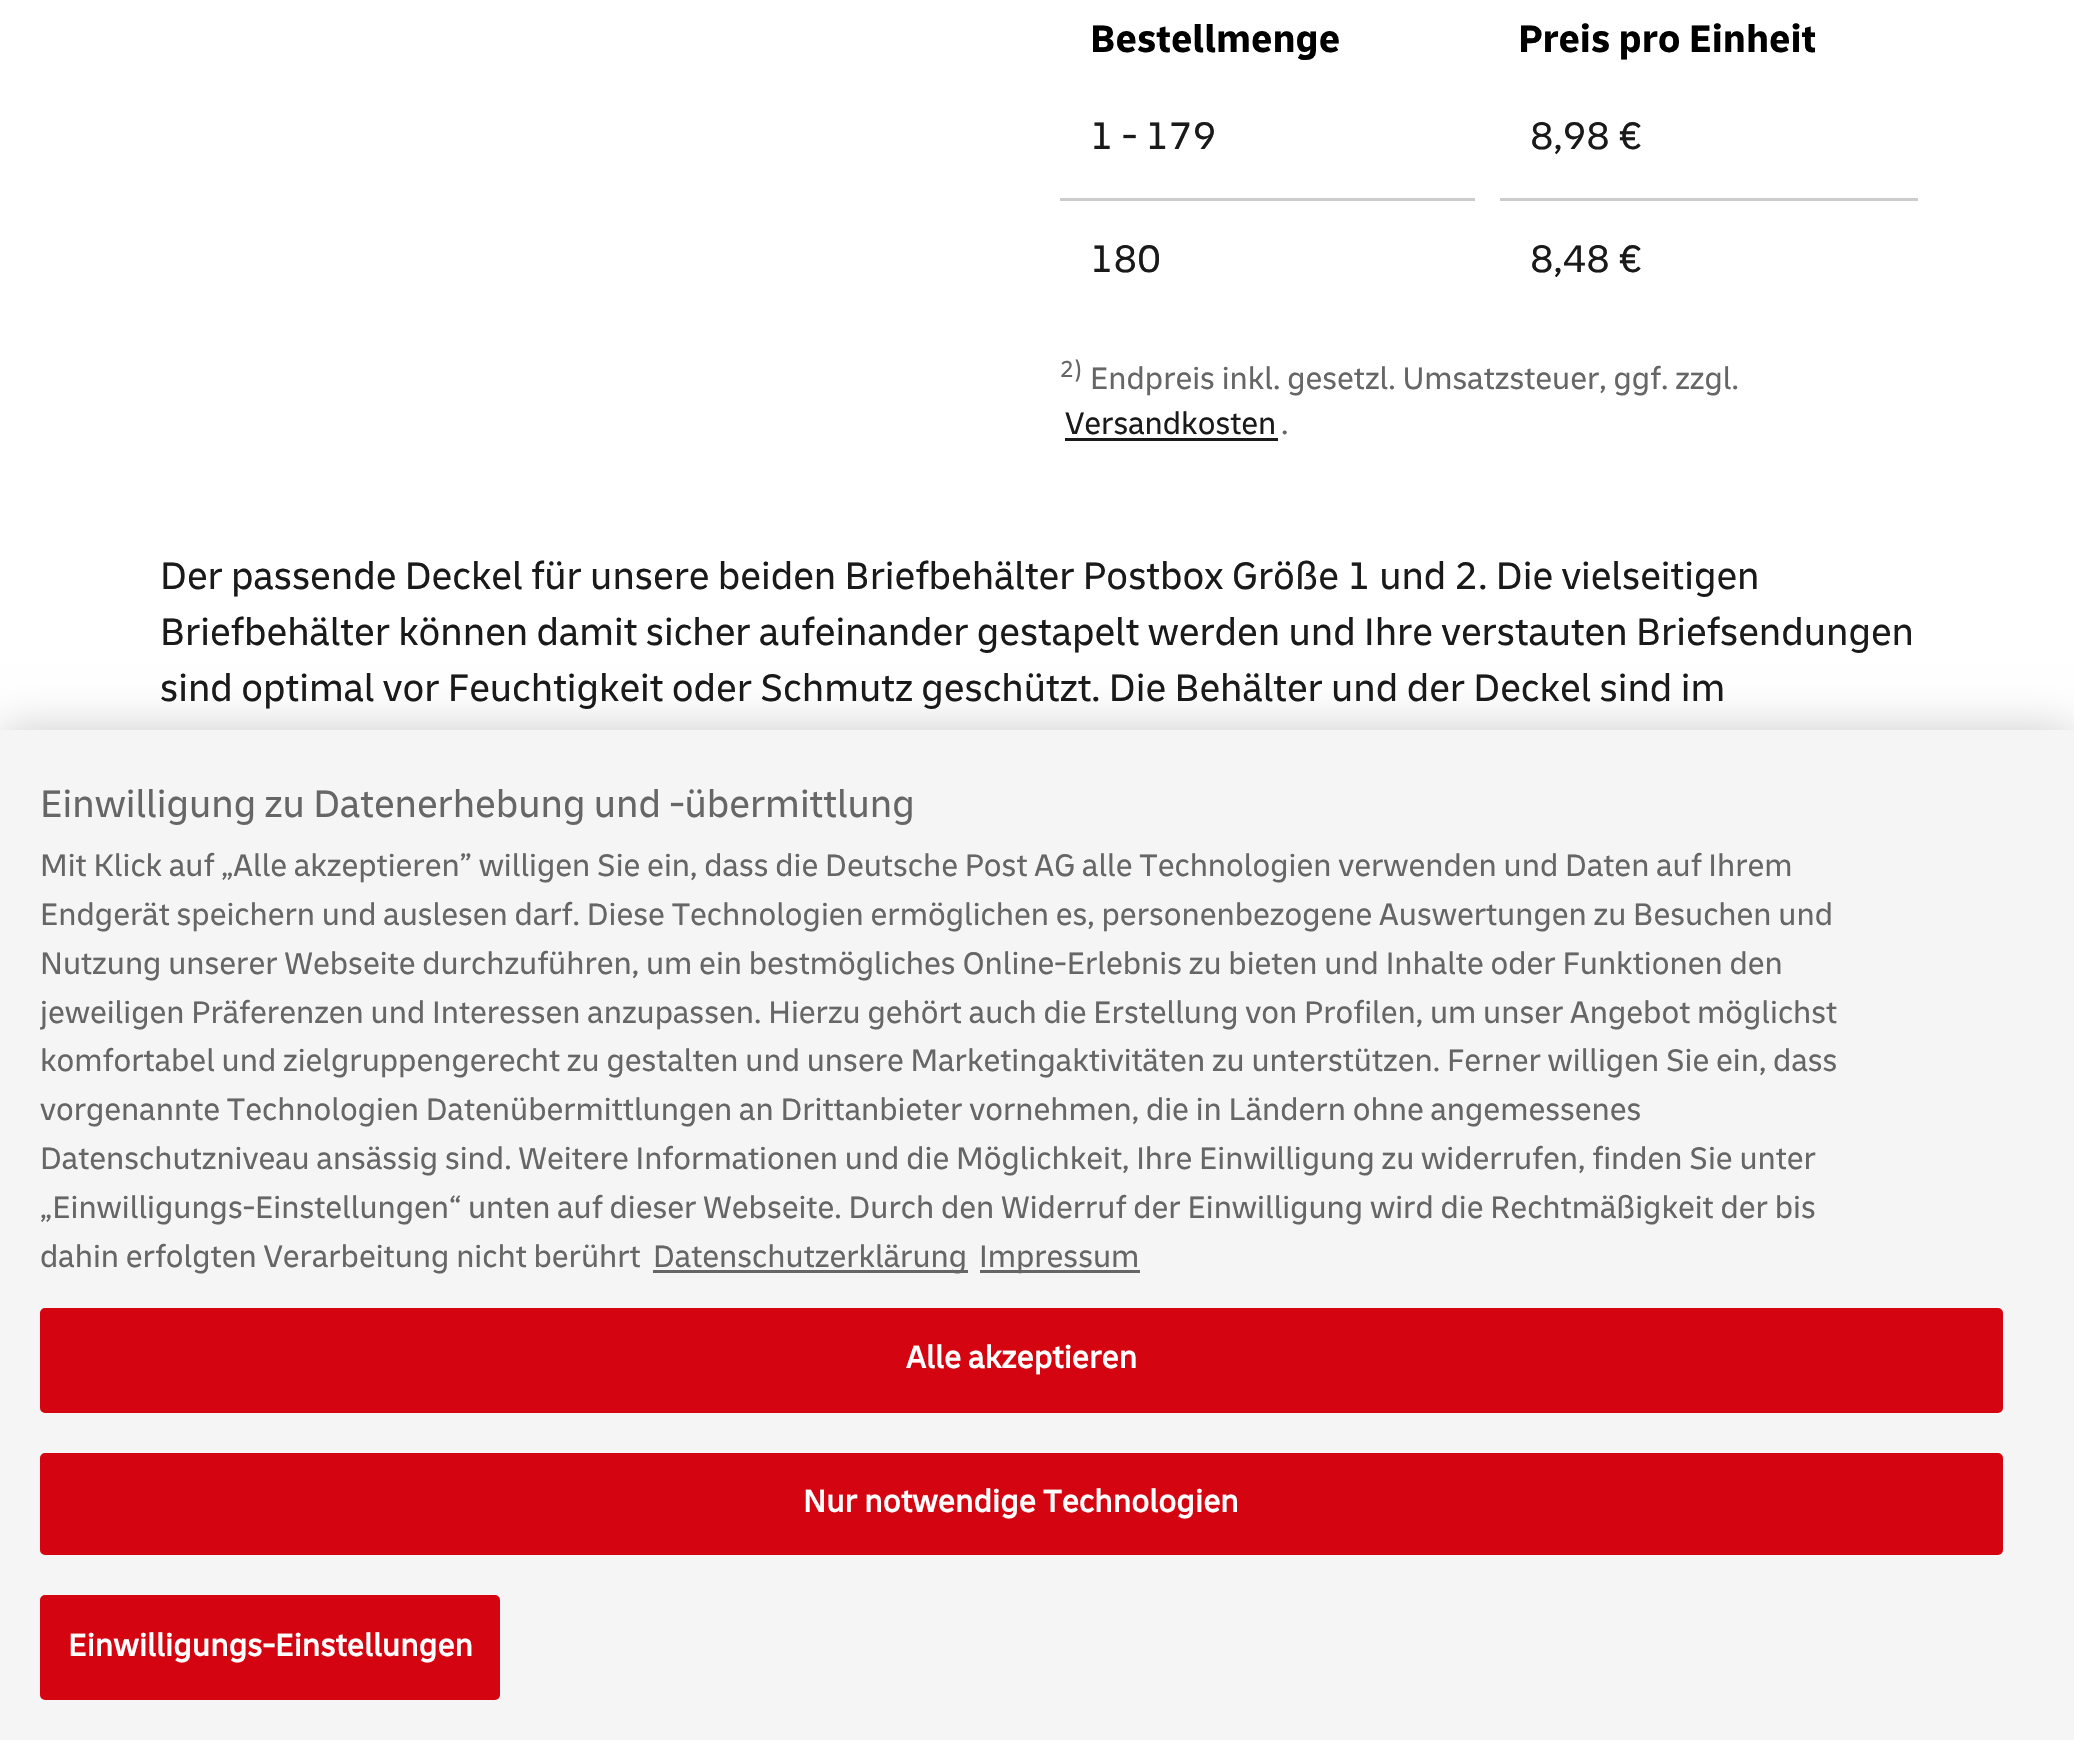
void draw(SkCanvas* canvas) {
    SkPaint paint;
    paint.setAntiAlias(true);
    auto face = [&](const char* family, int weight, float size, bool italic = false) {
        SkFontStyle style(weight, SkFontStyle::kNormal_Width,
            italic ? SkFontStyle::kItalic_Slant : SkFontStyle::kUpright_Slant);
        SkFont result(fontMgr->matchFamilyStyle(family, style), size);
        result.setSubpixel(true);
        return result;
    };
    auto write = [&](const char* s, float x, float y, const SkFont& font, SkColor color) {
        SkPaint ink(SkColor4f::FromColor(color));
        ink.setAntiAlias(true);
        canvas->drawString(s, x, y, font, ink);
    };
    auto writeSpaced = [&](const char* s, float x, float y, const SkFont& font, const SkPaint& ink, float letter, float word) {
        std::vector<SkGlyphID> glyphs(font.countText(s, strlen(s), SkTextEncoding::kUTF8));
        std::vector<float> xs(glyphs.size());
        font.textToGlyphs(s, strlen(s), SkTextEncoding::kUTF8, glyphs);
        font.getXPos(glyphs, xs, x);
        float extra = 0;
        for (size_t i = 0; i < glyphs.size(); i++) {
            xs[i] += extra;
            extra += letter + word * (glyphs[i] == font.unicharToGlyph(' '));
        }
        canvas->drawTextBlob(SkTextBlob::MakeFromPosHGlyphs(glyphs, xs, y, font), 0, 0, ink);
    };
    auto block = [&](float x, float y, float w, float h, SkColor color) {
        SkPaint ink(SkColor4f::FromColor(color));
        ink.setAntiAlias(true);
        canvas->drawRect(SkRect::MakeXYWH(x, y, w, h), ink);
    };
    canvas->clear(SK_ColorWHITE);
    auto kFont1 = face("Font", 700, 40);
    write("Bestellmenge", 1090, 52, kFont1, SK_ColorBLACK);
    write("Preis pro Einheit", 1518, 52, kFont1, SK_ColorBLACK);
    auto kFont2 = face("Font", 400, 40);
    write("1 - 179", 1090, 149, kFont2, SkColorSetRGB(26, 26, 26));
    write("8,98 €", 1530, 149, kFont2, SkColorSetRGB(26, 26, 26));
    block(1060, 198, 858, 3, SkColorSetRGB(204, 204, 204));
    write("180", 1090, 272, kFont2, SkColorSetRGB(26, 26, 26));
    block(1475, 198, 25, 3, SK_ColorWHITE);
    write("8,48 €", 1530, 272, kFont2, SkColorSetRGB(26, 26, 26));
    auto kFont3 = face("Font", 400, 24);
    write("2)", 1060, 377, kFont3, SkColorSetRGB(102, 102, 102));
    auto kFont4 = face("Font", 400, 32.5f);
    write("Endpreis inkl. gesetzl. Umsatzsteuer, ggf. zzgl.", 1090, 389, kFont4, SkColorSetRGB(102, 102, 102));
    write("Versandkosten", 1065, 434, kFont4, SkColorSetRGB(26, 26, 26));
    block(1065, 438, 213, 3, SkColorSetRGB(26, 26, 26));
    write(".", 1281, 434, kFont4, SkColorSetRGB(102, 102, 102));
    write("Der passende Deckel für unsere beiden Briefbehälter Postbox Größe 1 und 2. Die vielseitigen", 160, 589, kFont2, SkColorSetRGB(26, 26, 26));
    write("Briefbehälter können damit sicher aufeinander gestapelt werden und Ihre verstauten Briefsendungen", 160, 645, kFont2, SkColorSetRGB(26, 26, 26));
    write("sind optimal vor Feuchtigkeit oder Schmutz geschützt. Die Behälter und der Deckel sind im", 160, 701, kFont2, SkColorSetRGB(26, 26, 26));
    paint.setColor(SkColorSetARGB(51, 0, 0, 0));
    paint.setMaskFilter(SkMaskFilter::MakeBlur(kNormal_SkBlurStyle, 22.5f));
    canvas->drawRect(SkRect::MakeXYWH(0, 730, 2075, 1010), paint);
    paint.setMaskFilter(nullptr);
    block(0, 730, 2074, 1010, SkColorSetRGB(245, 245, 245));
    write("Einwilligung zu Datenerhebung und -übermittlung", 40, 817, kFont2, SkColorSetRGB(102, 102, 102));
    auto kFont5 = face("Font", 400, 32.52f);
    write("Mit Klick auf „Alle akzeptieren” willigen Sie ein, dass die Deutsche Post AG alle Technologien verwenden und Daten auf Ihrem", 40, 876, kFont5, SkColorSetRGB(102, 102, 102));
    write("Endgerät speichern und auslesen darf. Diese Technologien ermöglichen es, personenbezogene Auswertungen zu Besuchen und", 40, 925, kFont5, SkColorSetRGB(102, 102, 102));
    write("Nutzung unserer Webseite durchzuführen, um ein bestmögliches Online-Erlebnis zu bieten und Inhalte oder Funktionen den", 40, 974, kFont5, SkColorSetRGB(102, 102, 102));
    write("jeweiligen Präferenzen und Interessen anzupassen. Hierzu gehört auch die Erstellung von Profilen, um unser Angebot möglichst", 40, 1023, kFont5, SkColorSetRGB(102, 102, 102));
    write("komfortabel und zielgruppengerecht zu gestalten und unsere Marketingaktivitäten zu unterstützen. Ferner willigen Sie ein, dass", 40, 1071, kFont5, SkColorSetRGB(102, 102, 102));
    write("vorgenannte Technologien Datenübermittlungen an Drittanbieter vornehmen, die in Ländern ohne angemessenes", 40, 1120, kFont5, SkColorSetRGB(102, 102, 102));
    write("Datenschutzniveau ansässig sind. Weitere Informationen und die Möglichkeit, Ihre Einwilligung zu widerrufen, finden Sie unter", 40, 1169, kFont5, SkColorSetRGB(102, 102, 102));
    write("„Einwilligungs-Einstellungen“ unten auf dieser Webseite. Durch den Widerruf der Einwilligung wird die Rechtmäßigkeit der bis", 40, 1218, kFont5, SkColorSetRGB(102, 102, 102));
    write("dahin erfolgten Verarbeitung nicht berührt", 40, 1267, kFont5, SkColorSetRGB(102, 102, 102));
    block(653, 1270, 315, 3, SkColorSetRGB(102, 102, 102));
    write("Datenschutzerklärung", 653, 1267, kFont5, SkColorSetRGB(102, 102, 102));
    block(980, 1270, 160, 3, SkColorSetRGB(102, 102, 102));
    write("Impressum", 979, 1267, kFont5, SkColorSetRGB(102, 102, 102));
    paint.setColor(SkColorSetRGB(212, 5, 17));
    canvas->drawRoundRect(SkRect::MakeXYWH(41.5f, 1309.5f, 1960, 102), 3.5f, 3.5f, paint);
    paint.setStyle(SkPaint::kStroke_Style);
    paint.setStrokeWidth(3);
    canvas->drawRoundRect(SkRect::MakeXYWH(41.5f, 1309.5f, 1960, 102), 3.5f, 3.5f, paint);
    auto kFont6 = face("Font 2", 700, 32.52f);
    paint.setStyle(SkPaint::kFill_Style);
    paint.setColor(SK_ColorWHITE);
    writeSpaced("Alle akzeptieren", 906, 1368, kFont6, paint, 0.3f, 0);
    paint.setColor(SkColorSetRGB(212, 5, 17));
    canvas->drawRoundRect(SkRect::MakeXYWH(41.5f, 1454.5f, 1960, 99), 3.5f, 3.5f, paint);
    paint.setStyle(SkPaint::kStroke_Style);
    canvas->drawRoundRect(SkRect::MakeXYWH(41.5f, 1454.5f, 1960, 99), 3.5f, 3.5f, paint);
    paint.setStyle(SkPaint::kFill_Style);
    paint.setColor(SK_ColorWHITE);
    writeSpaced("Nur notwendige Technologien", 803, 1512, kFont6, paint, 0.3f, 0);
    paint.setColor(SkColorSetRGB(212, 5, 17));
    canvas->drawRoundRect(SkRect::MakeXYWH(41.5f, 1596.5f, 457, 102), 3.5f, 3.5f, paint);
    paint.setStyle(SkPaint::kStroke_Style);
    canvas->drawRoundRect(SkRect::MakeXYWH(41.5f, 1596.5f, 457, 102), 3.5f, 3.5f, paint);
    paint.setStyle(SkPaint::kFill_Style);
    paint.setColor(SK_ColorWHITE);
    writeSpaced("Einwilligungs-Einstellungen", 68, 1656, kFont6, paint, 0.3f, 0);
}
